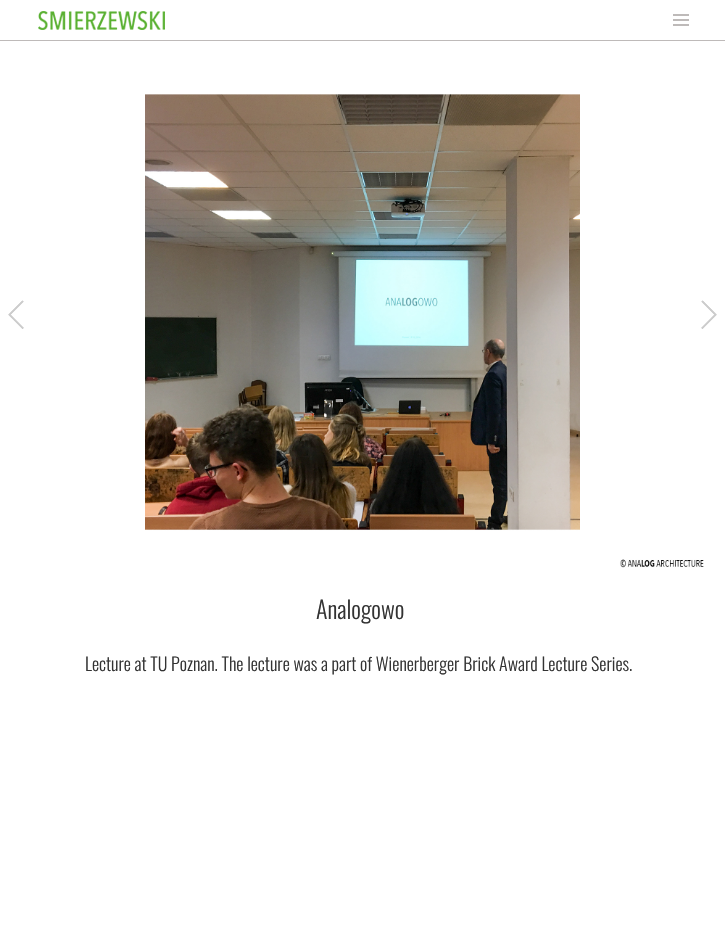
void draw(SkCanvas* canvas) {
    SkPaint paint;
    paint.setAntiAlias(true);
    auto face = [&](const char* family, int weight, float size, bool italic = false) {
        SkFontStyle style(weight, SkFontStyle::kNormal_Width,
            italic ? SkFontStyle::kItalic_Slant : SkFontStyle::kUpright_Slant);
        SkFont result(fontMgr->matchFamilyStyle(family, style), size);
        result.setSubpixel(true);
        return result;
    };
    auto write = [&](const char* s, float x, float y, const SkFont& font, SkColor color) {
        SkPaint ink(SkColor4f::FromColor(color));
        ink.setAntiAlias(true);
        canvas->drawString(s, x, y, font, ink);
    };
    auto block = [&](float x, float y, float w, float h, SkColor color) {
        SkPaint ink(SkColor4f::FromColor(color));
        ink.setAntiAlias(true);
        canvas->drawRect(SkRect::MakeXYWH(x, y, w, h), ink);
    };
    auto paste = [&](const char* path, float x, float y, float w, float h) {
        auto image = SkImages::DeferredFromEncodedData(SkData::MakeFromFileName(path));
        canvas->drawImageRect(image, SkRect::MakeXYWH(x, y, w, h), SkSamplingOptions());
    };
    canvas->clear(SK_ColorWHITE);
    block(0, 40, 725, 1, SkColorSetRGB(190, 186, 185));
    paste("pic1.png", 38, 11, 127, 19);
    paste("pic2.png", 673, 14, 16, 12);
    paste("pic3.png", 145, 94, 559, 474);
    paste("pic4.png", 8, 300, 16, 29);
    paste("pic5.png", 701, 300, 16, 29);
    auto kFont1 = face("Oswald", 300, 24);
    write("Analogowo", 316, 619, kFont1, SkColorSetRGB(51, 51, 51));
    auto kFont2 = face("Oswald", 300, 18);
    write("Lecture at TU Poznan. The lecture was a part of Wienerberger Brick Award Lecture Series.", 85, 671, kFont2, SkColorSetRGB(51, 51, 51));
}
